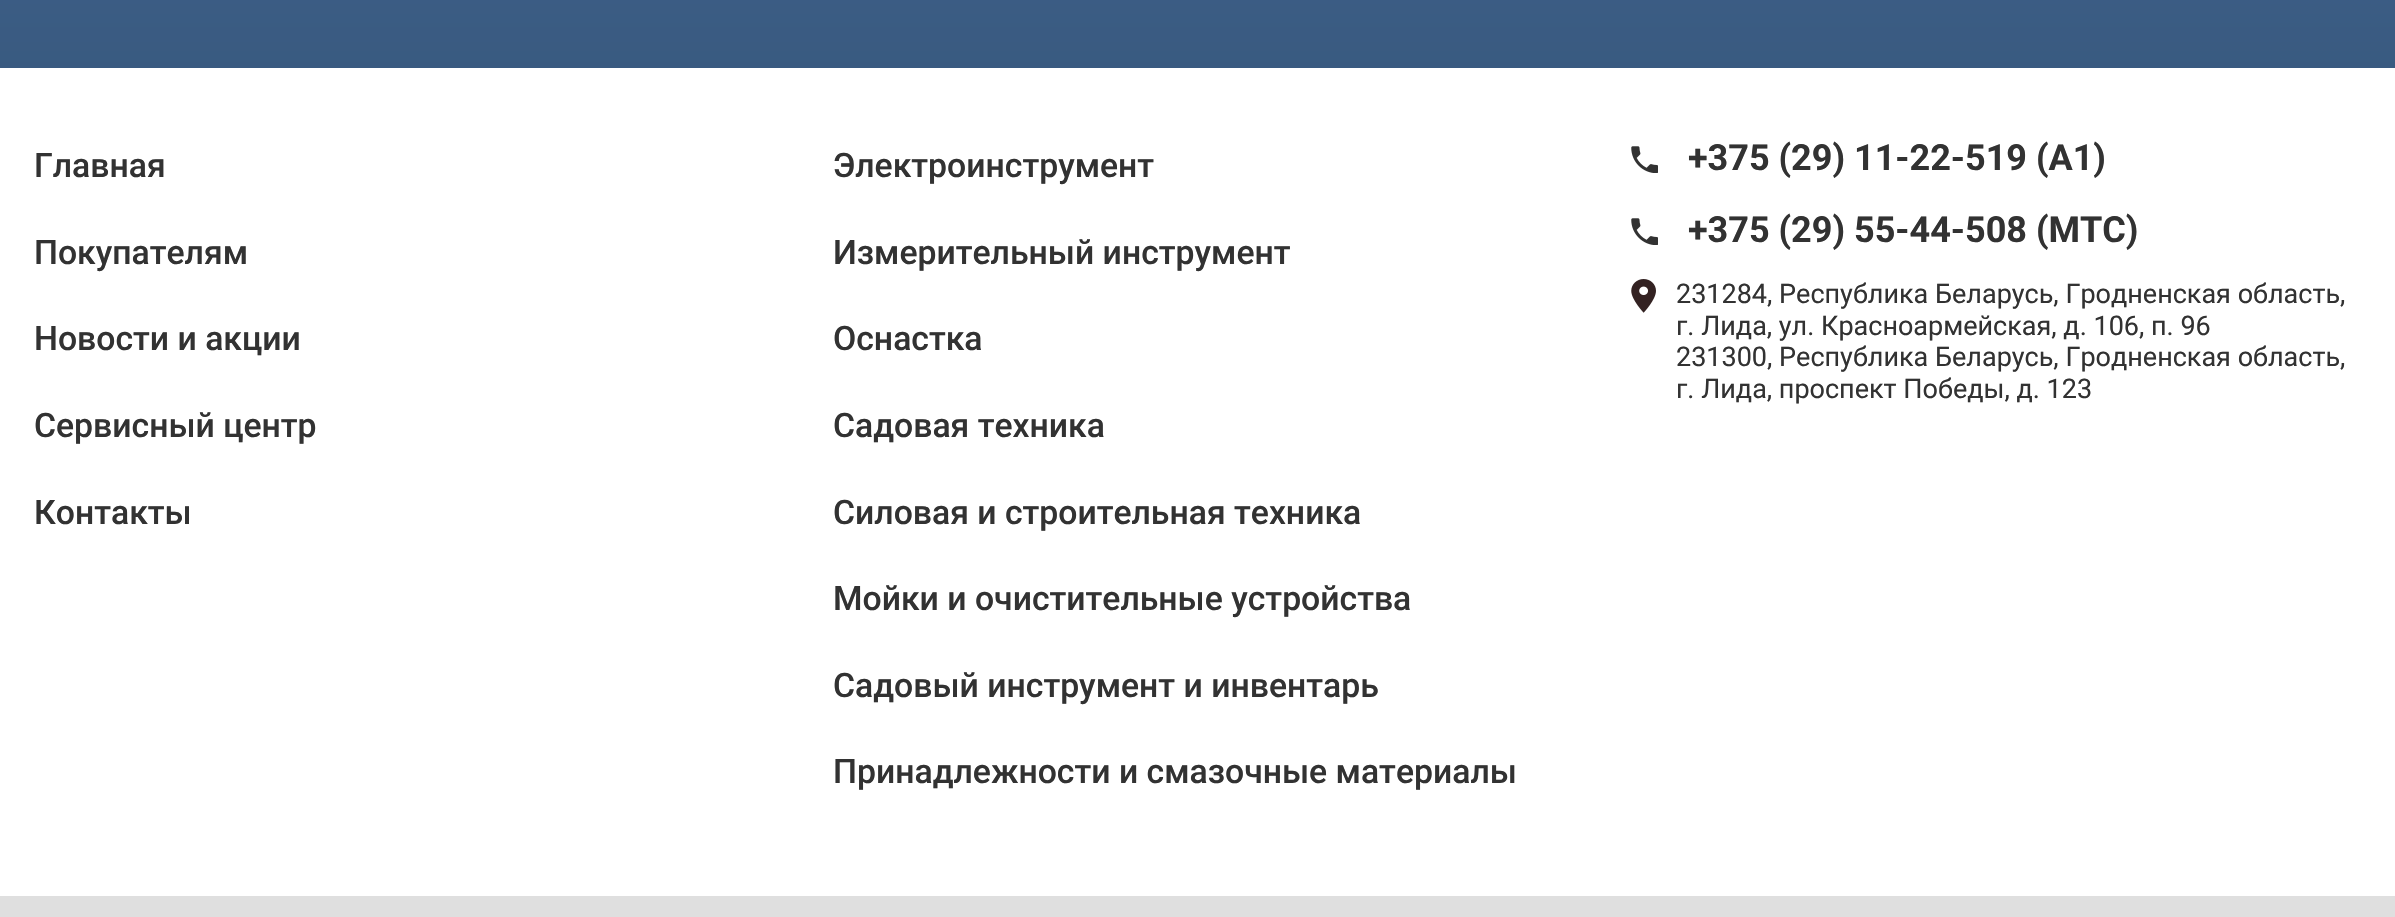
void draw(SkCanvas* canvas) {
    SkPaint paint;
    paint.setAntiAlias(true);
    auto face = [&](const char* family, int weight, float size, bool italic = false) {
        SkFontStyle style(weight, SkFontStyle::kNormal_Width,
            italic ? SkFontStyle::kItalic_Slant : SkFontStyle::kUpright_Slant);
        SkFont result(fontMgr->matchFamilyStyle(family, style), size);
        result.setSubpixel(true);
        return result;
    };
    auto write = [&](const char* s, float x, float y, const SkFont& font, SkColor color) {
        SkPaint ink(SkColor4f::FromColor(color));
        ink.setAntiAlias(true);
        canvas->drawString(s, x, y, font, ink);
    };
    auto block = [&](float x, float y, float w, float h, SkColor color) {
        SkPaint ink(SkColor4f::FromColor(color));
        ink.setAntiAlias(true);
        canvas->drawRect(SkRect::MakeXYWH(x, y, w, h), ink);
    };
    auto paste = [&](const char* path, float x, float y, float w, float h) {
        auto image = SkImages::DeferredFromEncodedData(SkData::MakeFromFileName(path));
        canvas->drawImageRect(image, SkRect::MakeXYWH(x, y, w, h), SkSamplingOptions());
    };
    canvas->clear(SK_ColorWHITE);
    {
        const SkColor colors[] = {SkColorSetRGB(66, 100, 146), SkColorSetRGB(54, 87, 122)};
        const float stops[] = {0, 1};
        const SkPoint ends[] = {{1198, -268}, {1198, 183}};
        paint.setShader(SkGradientShader::MakeLinear(ends, colors, stops, 2, SkTileMode::kClamp));
        paint.setAlpha(255);
    }
    canvas->drawRect(SkRect::MakeXYWH(0, 0, 2395, 68), paint);
    auto kFont1 = face("Roboto", 500, 33.75f);
    write("Главная", 34, 177, kFont1, SkColorSetRGB(50, 50, 50));
    write("Покупателям", 34, 264, kFont1, SkColorSetRGB(50, 50, 50));
    write("Новости и акции", 34, 350, kFont1, SkColorSetRGB(50, 50, 50));
    write("Сервисный центр", 34, 437, kFont1, SkColorSetRGB(50, 50, 50));
    write("Контакты", 34, 524, kFont1, SkColorSetRGB(50, 50, 50));
    write("Электроинструмент", 833, 177, kFont1, SkColorSetRGB(50, 50, 50));
    write("Измерительный инструмент", 833, 264, kFont1, SkColorSetRGB(50, 50, 50));
    write("Оснастка", 833, 350, kFont1, SkColorSetRGB(50, 50, 50));
    write("Садовая техника", 833, 437, kFont1, SkColorSetRGB(50, 50, 50));
    write("Силовая и строительная техника", 833, 524, kFont1, SkColorSetRGB(50, 50, 50));
    write("Мойки и очистительные устройства", 833, 610, kFont1, SkColorSetRGB(50, 50, 50));
    write("Садовый инструмент и инвентарь", 833, 697, kFont1, SkColorSetRGB(50, 50, 50));
    write("Принадлежности и смазочные материалы", 833, 783, kFont1, SkColorSetRGB(50, 50, 50));
    paste("pic1.png", 1631, 146, 27, 27);
    auto kFont2 = face("Roboto", 700, 36);
    write("+375 (29) 11-22-519 (A1)", 1688, 170, kFont2, SkColorSetRGB(50, 50, 50));
    paste("pic1.png", 1631, 218, 27, 27);
    write("+375 (29) 55-44-508 (MTC)", 1688, 242, kFont2, SkColorSetRGB(50, 50, 50));
    paste("pic2.png", 1631, 279, 25, 34);
    auto kFont3 = face("Roboto", 400, 27);
    write("231284, Республика Беларусь, Гродненская область,", 1676, 303, kFont3, SkColorSetRGB(50, 50, 50));
    write("г. Лида, ул. Красноармейская, д. 106, п. 96", 1676, 335, kFont3, SkColorSetRGB(50, 50, 50));
    write("231300, Республика Беларусь, Гродненская область,", 1676, 366, kFont3, SkColorSetRGB(50, 50, 50));
    write("г. Лида, проспект Победы, д. 123", 1676, 398, kFont3, SkColorSetRGB(50, 50, 50));
    block(0, 896, 2395, 21, SkColorSetRGB(223, 223, 223));
}
